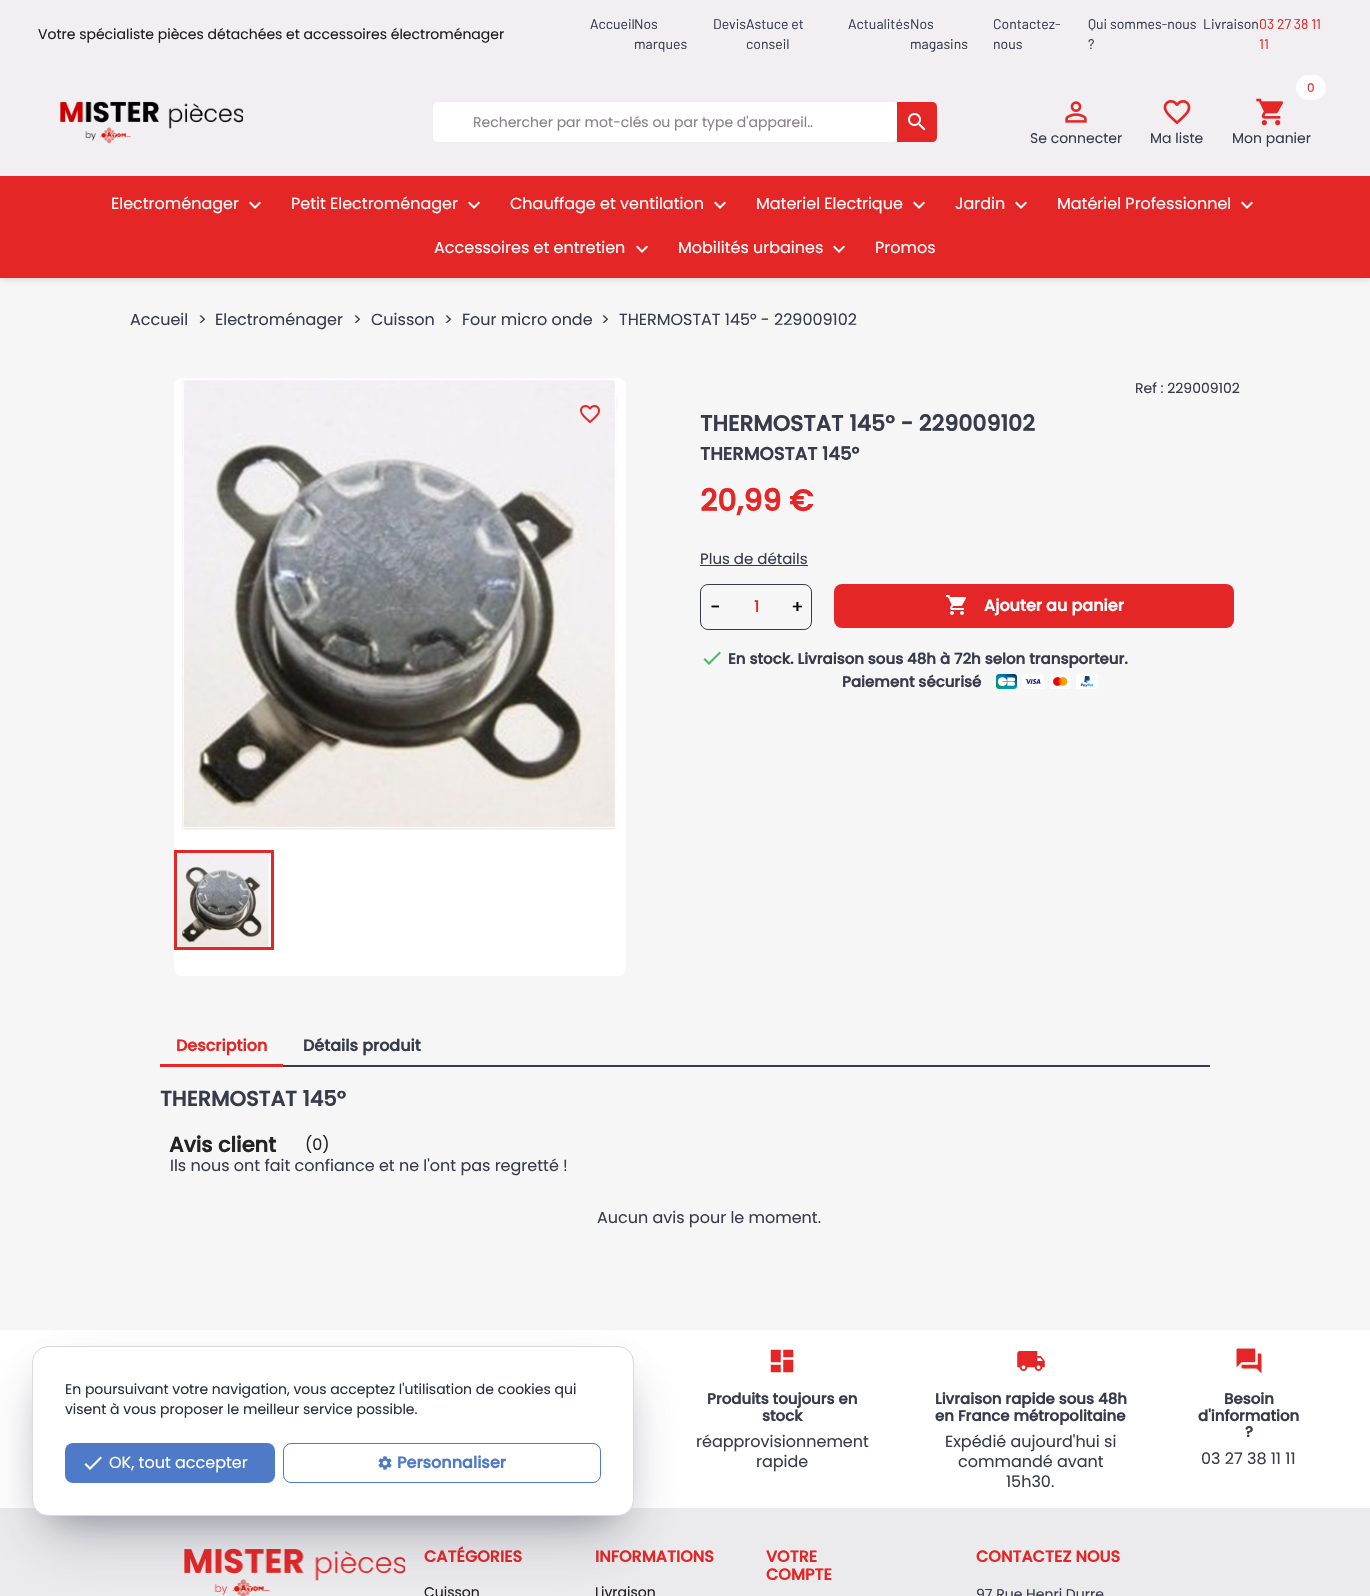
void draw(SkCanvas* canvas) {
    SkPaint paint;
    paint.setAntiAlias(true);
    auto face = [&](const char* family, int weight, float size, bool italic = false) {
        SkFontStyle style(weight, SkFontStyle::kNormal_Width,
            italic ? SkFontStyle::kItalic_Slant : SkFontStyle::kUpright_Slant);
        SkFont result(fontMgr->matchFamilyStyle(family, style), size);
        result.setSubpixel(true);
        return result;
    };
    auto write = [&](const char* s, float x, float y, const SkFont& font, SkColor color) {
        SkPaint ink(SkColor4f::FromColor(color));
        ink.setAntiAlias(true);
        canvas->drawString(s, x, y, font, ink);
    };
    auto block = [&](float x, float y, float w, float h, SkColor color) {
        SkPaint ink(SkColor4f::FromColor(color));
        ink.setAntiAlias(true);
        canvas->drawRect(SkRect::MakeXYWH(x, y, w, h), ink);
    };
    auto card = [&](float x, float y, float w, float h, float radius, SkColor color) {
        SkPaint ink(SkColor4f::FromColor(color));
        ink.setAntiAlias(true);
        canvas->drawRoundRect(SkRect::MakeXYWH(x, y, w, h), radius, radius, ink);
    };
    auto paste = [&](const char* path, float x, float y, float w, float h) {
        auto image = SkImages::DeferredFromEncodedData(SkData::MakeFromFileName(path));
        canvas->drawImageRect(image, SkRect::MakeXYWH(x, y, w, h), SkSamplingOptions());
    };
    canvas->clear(SK_ColorWHITE);
    block(0, 278, 1370, 1052, SkColorSetRGB(246, 246, 246));
    paint.setColor(SkColorSetARGB(28, 0, 0, 0));
    paint.setMaskFilter(SkMaskFilter::MakeBlur(kNormal_SkBlurStyle, 2.5f));
    canvas->drawRect(SkRect::MakeXYWH(0, 2, 1370, 278), paint);
    paint.setMaskFilter(nullptr);
    block(0, 0, 1370, 176, SkColorSetRGB(241, 239, 241));
    auto kFont1 = face("Poppins", 400, 14);
    write("Votre spécialiste pièces détachées et accessoires électroménager", 38, 39, kFont1, SkColorSetRGB(32, 26, 35));
    auto kFont2 = face("Barlow", 400, 14);
    write("Accueil", 590, 29, kFont2, SkColorSetRGB(56, 59, 75));
    write("Nos", 634, 29, kFont2, SkColorSetRGB(56, 59, 75));
    write("marques", 634, 49, kFont2, SkColorSetRGB(56, 59, 75));
    write("Devis", 713, 29, kFont2, SkColorSetRGB(56, 59, 75));
    write("Astuce et", 746, 29, kFont2, SkColorSetRGB(56, 59, 75));
    write("conseil", 746, 49, kFont2, SkColorSetRGB(56, 59, 75));
    write("Actualités", 848, 29, kFont2, SkColorSetRGB(56, 59, 75));
    write("Nos", 910, 29, kFont2, SkColorSetRGB(56, 59, 75));
    write("magasins", 910, 49, kFont2, SkColorSetRGB(56, 59, 75));
    write("Contactez-", 993, 29, kFont2, SkColorSetRGB(56, 59, 75));
    write("nous", 993, 49, kFont2, SkColorSetRGB(56, 59, 75));
    write("Qui sommes-nous", 1088, 29, kFont2, SkColorSetRGB(56, 59, 75));
    write("?", 1088, 49, kFont2, SkColorSetRGB(56, 59, 75));
    write("Livraison", 1203, 29, kFont2, SkColorSetRGB(56, 59, 75));
    write("03 27 38 11", 1259, 29, kFont2, SkColorSetRGB(228, 38, 38));
    write("11", 1259, 49, kFont2, SkColorSetRGB(228, 38, 38));
    paste("pic1.png", 60, 101, 183, 42);
    card(433, 102, 464, 40, 5, SK_ColorWHITE);
    write("Rechercher par mot-clés ou par type d'appareil..", 473, 127, kFont1, SkColorSetRGB(135, 131, 136));
    paint.setColor(SkColorSetRGB(228, 38, 38));
    canvas->drawPath(SkPathBuilder().moveTo(897, 102).lineTo(932, 102).cubicTo(935, 102, 937, 104, 937, 107).lineTo(937, 137).cubicTo(937, 140, 935, 142, 932, 142).lineTo(897, 142).close().detach(), paint);
    paste("pic2.png", 908, 113, 18, 18);
    paste("pic3.png", 1065, 101, 22, 22);
    write("Se connecter", 1030, 143, kFont1, SkColorSetRGB(56, 59, 75));
    paste("pic4.png", 1163, 100, 28, 25);
    write("Ma liste", 1150, 143, kFont1, SkColorSetRGB(56, 59, 75));
    card(1296, 75, 30, 25, 12.5f, SK_ColorWHITE);
    auto kFont3 = face("Poppins", 400, 12);
    write("0", 1307, 92, kFont3, SkColorSetRGB(228, 38, 38));
    paste("pic5.png", 1256, 98, 27, 28);
    write("Mon panier", 1232, 143, kFont1, SkColorSetRGB(56, 59, 75));
    block(0, 176, 1370, 102, SkColorSetRGB(228, 38, 38));
    auto kFont4 = face("Poppins", 400, 16);
    write("Electroménager", 111, 209, kFont4, SK_ColorWHITE);
    paste("pic6.png", 249, 201, 12, 8);
    write("Petit Electroménager", 291, 209, kFont4, SK_ColorWHITE);
    paste("pic6.png", 468, 201, 12, 8);
    write("Chauffage et ventilation", 510, 209, kFont4, SK_ColorWHITE);
    paste("pic6.png", 714, 201, 12, 8);
    write("Materiel Electrique", 756, 209, kFont4, SK_ColorWHITE);
    paste("pic6.png", 913, 201, 12, 8);
    write("Jardin", 955, 209, kFont4, SK_ColorWHITE);
    paste("pic6.png", 1015, 201, 12, 8);
    write("Matériel Professionnel", 1057, 209, kFont4, SK_ColorWHITE);
    paste("pic6.png", 1241, 201, 12, 8);
    write("Accessoires et entretien", 434, 253, kFont4, SK_ColorWHITE);
    paste("pic6.png", 636, 245, 12, 8);
    write("Mobilités urbaines", 678, 253, kFont4, SK_ColorWHITE);
    paste("pic6.png", 833, 245, 12, 8);
    write("Promos", 875, 253, kFont4, SK_ColorWHITE);
    write("Accueil", 130, 325, kFont4, SkColorSetRGB(56, 59, 75));
    write(">", 198, 325, kFont4, SkColorSetRGB(56, 59, 75));
    write("Electroménager", 215, 325, kFont4, SkColorSetRGB(56, 59, 75));
    write(">", 353, 325, kFont4, SkColorSetRGB(56, 59, 75));
    write("Cuisson", 371, 325, kFont4, SkColorSetRGB(56, 59, 75));
    write(">", 444, 325, kFont4, SkColorSetRGB(56, 59, 75));
    write("Four micro onde", 462, 325, kFont4, SkColorSetRGB(56, 59, 75));
    write(">", 601, 325, kFont4, SkColorSetRGB(56, 59, 75));
    write("THERMOSTAT 145° - 229009102", 619, 325, kFont4, SkColorSetRGB(56, 59, 75));
    card(174, 378, 452, 598, 8, SK_ColorWHITE);
    paste("pic7.png", 181, 378, 437, 452);
    paint.setStyle(SkPaint::kStroke_Style);
    paint.setStrokeWidth(3);
    canvas->drawRect(SkRect::MakeXYWH(175.5f, 851.5f, 97, 97), paint);
    paste("pic8.png", 178, 853, 92, 94);
    write("Ref : 229009102", 1135, 393, kFont1, SkColorSetRGB(56, 59, 75));
    auto kFont5 = face("Poppins", 700, 22);
    write("THERMOSTAT 145° - 229009102", 700, 431, kFont5, SkColorSetRGB(56, 59, 75));
    auto kFont6 = face("Poppins", 700, 18);
    write("THERMOSTAT 145°", 700, 460, kFont6, SkColorSetRGB(56, 59, 75));
    auto kFont7 = face("Poppins", 700, 30);
    write("20,99 €", 700, 511, kFont7, SkColorSetRGB(228, 38, 38));
    auto kFont8 = face("Poppins", 400, 15);
    write("Plus de détails", 700, 564, kFont8, SkColorSetRGB(56, 59, 75));
    block(700, 565, 108, 1, SkColorSetRGB(56, 59, 75));
    paste("pic9.png", 580, 405, 20, 19);
    paint.setStrokeWidth(1);
    paint.setColor(SkColorSetRGB(56, 59, 75));
    canvas->drawRoundRect(SkRect::MakeXYWH(700.5f, 584.5f, 111, 45), 7.5f, 7.5f, paint);
    auto kFont9 = face("Poppins", 500, 16);
    write("1", 754, 612, kFont9, SkColorSetRGB(228, 38, 38));
    auto kFont10 = face("Poppins", 500, 18);
    write("-", 710, 613, kFont10, SK_ColorBLACK);
    write("+", 791, 613, kFont10, SK_ColorBLACK);
    card(834, 584, 400, 44, 8, SkColorSetRGB(228, 38, 38));
    paste("pic10.png", 946, 595, 20, 20);
    auto kFont11 = face("Poppins", 700, 16);
    write("Ajouter au panier", 984, 611, kFont11, SK_ColorWHITE);
    paint.setStyle(SkPaint::kFill_Style);
    paint.setColor(SkColorSetRGB(76, 187, 108));
    canvas->drawPath(SkPathBuilder().moveTo(709, 662).lineTo(719.5f, 651.5f).lineTo(721, 653).lineTo(709, 665).lineTo(703.5f, 659.5f).lineTo(705, 658).close().detach(), paint);
    auto kFont12 = face("Poppins", 700, 15);
    write("En stock. Livraison sous 48h à 72h selon transporteur.", 728, 664, kFont12, SkColorSetRGB(56, 59, 75));
    write("Paiement sécurisé", 842, 687, kFont12, SkColorSetRGB(56, 59, 75));
    paste("pic11.png", 996, 674, 102, 15);
    block(283, 1065, 927, 2, SkColorSetRGB(56, 59, 75));
    block(160, 1064, 123, 3, SkColorSetRGB(228, 38, 38));
    write("Description", 176, 1051, kFont11, SkColorSetRGB(228, 38, 38));
    write("Détails produit", 303, 1051, kFont11, SkColorSetRGB(56, 59, 75));
    auto kFont13 = face("Poppins", 700, 21);
    write("THERMOSTAT 145°", 160, 1106, kFont13, SkColorSetRGB(56, 59, 75));
    write("Avis client", 169, 1152, kFont13, SkColorSetRGB(35, 35, 35));
    write("(0)", 305, 1150, kFont4, SkColorSetRGB(35, 35, 35));
    write("Ils nous ont fait confiance et ne l'ont pas regretté !", 170, 1171, kFont4, SkColorSetRGB(56, 59, 75));
    write("Aucun avis pour le moment.", 597, 1223, kFont4, SkColorSetRGB(56, 59, 75));
    paste("pic12.png", 770, 1349, 24, 24);
    write("Produits toujours en", 707, 1404, kFont12, SkColorSetRGB(56, 59, 75));
    write("stock", 762, 1421, kFont12, SkColorSetRGB(56, 59, 75));
    write("réapprovisionnement", 696, 1447, kFont4, SkColorSetRGB(56, 59, 75));
    write("rapide", 756, 1467, kFont4, SkColorSetRGB(56, 59, 75));
    paste("pic13.png", 1017, 1351, 28, 20);
    write("Livraison rapide sous 48h", 935, 1404, kFont12, SkColorSetRGB(56, 59, 75));
    write("en France métropolitaine", 935, 1421, kFont12, SkColorSetRGB(56, 59, 75));
    write("Expédié aujourd'hui si", 945, 1447, kFont4, SkColorSetRGB(56, 59, 75));
    write("commandé avant", 958, 1467, kFont4, SkColorSetRGB(56, 59, 75));
    write("15h30.", 1006, 1487, kFont4, SkColorSetRGB(56, 59, 75));
    paste("pic14.png", 1236, 1348, 26, 26);
    write("Besoin", 1224, 1404, kFont12, SkColorSetRGB(56, 59, 75));
    write("d'information", 1198, 1421, kFont12, SkColorSetRGB(56, 59, 75));
    write("?", 1245, 1437, kFont12, SkColorSetRGB(56, 59, 75));
    write("03 27 38 11 11", 1201, 1464, kFont4, SkColorSetRGB(56, 59, 75));
    block(0, 1508, 1370, 88, SkColorSetRGB(235, 235, 237));
    paste("pic15.png", 184, 1548, 221, 48);
    write("CATÉGORIES", 424, 1562, kFont11, SkColorSetRGB(228, 38, 38));
    write("Cuisson", 424, 1597, kFont1, SkColorSetRGB(32, 26, 35));
    write("INFORMATIONS", 595, 1562, kFont11, SkColorSetRGB(228, 38, 38));
    write("Livraison", 595, 1597, kFont1, SkColorSetRGB(32, 26, 35));
    write("VOTRE", 766, 1562, kFont11, SkColorSetRGB(228, 38, 38));
    write("COMPTE", 766, 1580, kFont11, SkColorSetRGB(228, 38, 38));
    write("CONTACTEZ NOUS", 976, 1562, kFont11, SkColorSetRGB(228, 38, 38));
    write("97 Rue Henri Durre", 976, 1599, kFont1, SkColorSetRGB(56, 59, 75));
    paint.setColor(SkColorSetARGB(77, 0, 0, 0));
    paint.setMaskFilter(SkMaskFilter::MakeBlur(kNormal_SkBlurStyle, 18));
    canvas->drawRect(SkRect::MakeXYWH(50, 1382, 566, 134), paint);
    paint.setMaskFilter(nullptr);
    paint.setColor(SkColorSetARGB(64, 50, 50, 93));
    paint.setMaskFilter(SkMaskFilter::MakeBlur(kNormal_SkBlurStyle, 30));
    canvas->drawRoundRect(SkRect::MakeXYWH(44, 1388, 578, 146), 4, 4, paint);
    paint.setMaskFilter(nullptr);
    paint.setColor(SK_ColorWHITE);
    canvas->drawRoundRect(SkRect::MakeXYWH(32.5f, 1346.5f, 601, 169), 15.5f, 15.5f, paint);
    paint.setStyle(SkPaint::kStroke_Style);
    paint.setColor(SkColorSetRGB(217, 217, 217));
    canvas->drawRoundRect(SkRect::MakeXYWH(32.5f, 1346.5f, 601, 169), 15.5f, 15.5f, paint);
    write("En poursuivant votre navigation, vous acceptez l'utilisation de cookies qui", 65, 1394, kFont1, SkColorSetRGB(40, 47, 61));
    write("visent à vous proposer le meilleur service possible.", 65, 1414, kFont1, SkColorSetRGB(40, 47, 61));
    card(65, 1443, 210, 40, 8, SkColorSetRGB(78, 122, 199));
    paint.setStyle(SkPaint::kFill_Style);
    paint.setColor(SK_ColorWHITE);
    canvas->drawPath(SkPathBuilder().moveTo(90, 1467).lineTo(100.5f, 1456.5f).lineTo(102, 1458).lineTo(90, 1470).lineTo(84.5f, 1464.5f).lineTo(86, 1463).close().detach(), paint);
    write("OK, tout accepter", 109, 1468, kFont4, SK_ColorWHITE);
    paint.setStyle(SkPaint::kStroke_Style);
    paint.setColor(SkColorSetRGB(78, 122, 199));
    canvas->drawRoundRect(SkRect::MakeXYWH(283.5f, 1443.5f, 317, 39), 7.5f, 7.5f, paint);
    paste("pic16.png", 378, 1456, 14, 14);
    write("Personnaliser", 397, 1468, kFont11, SkColorSetRGB(78, 122, 199));
}
